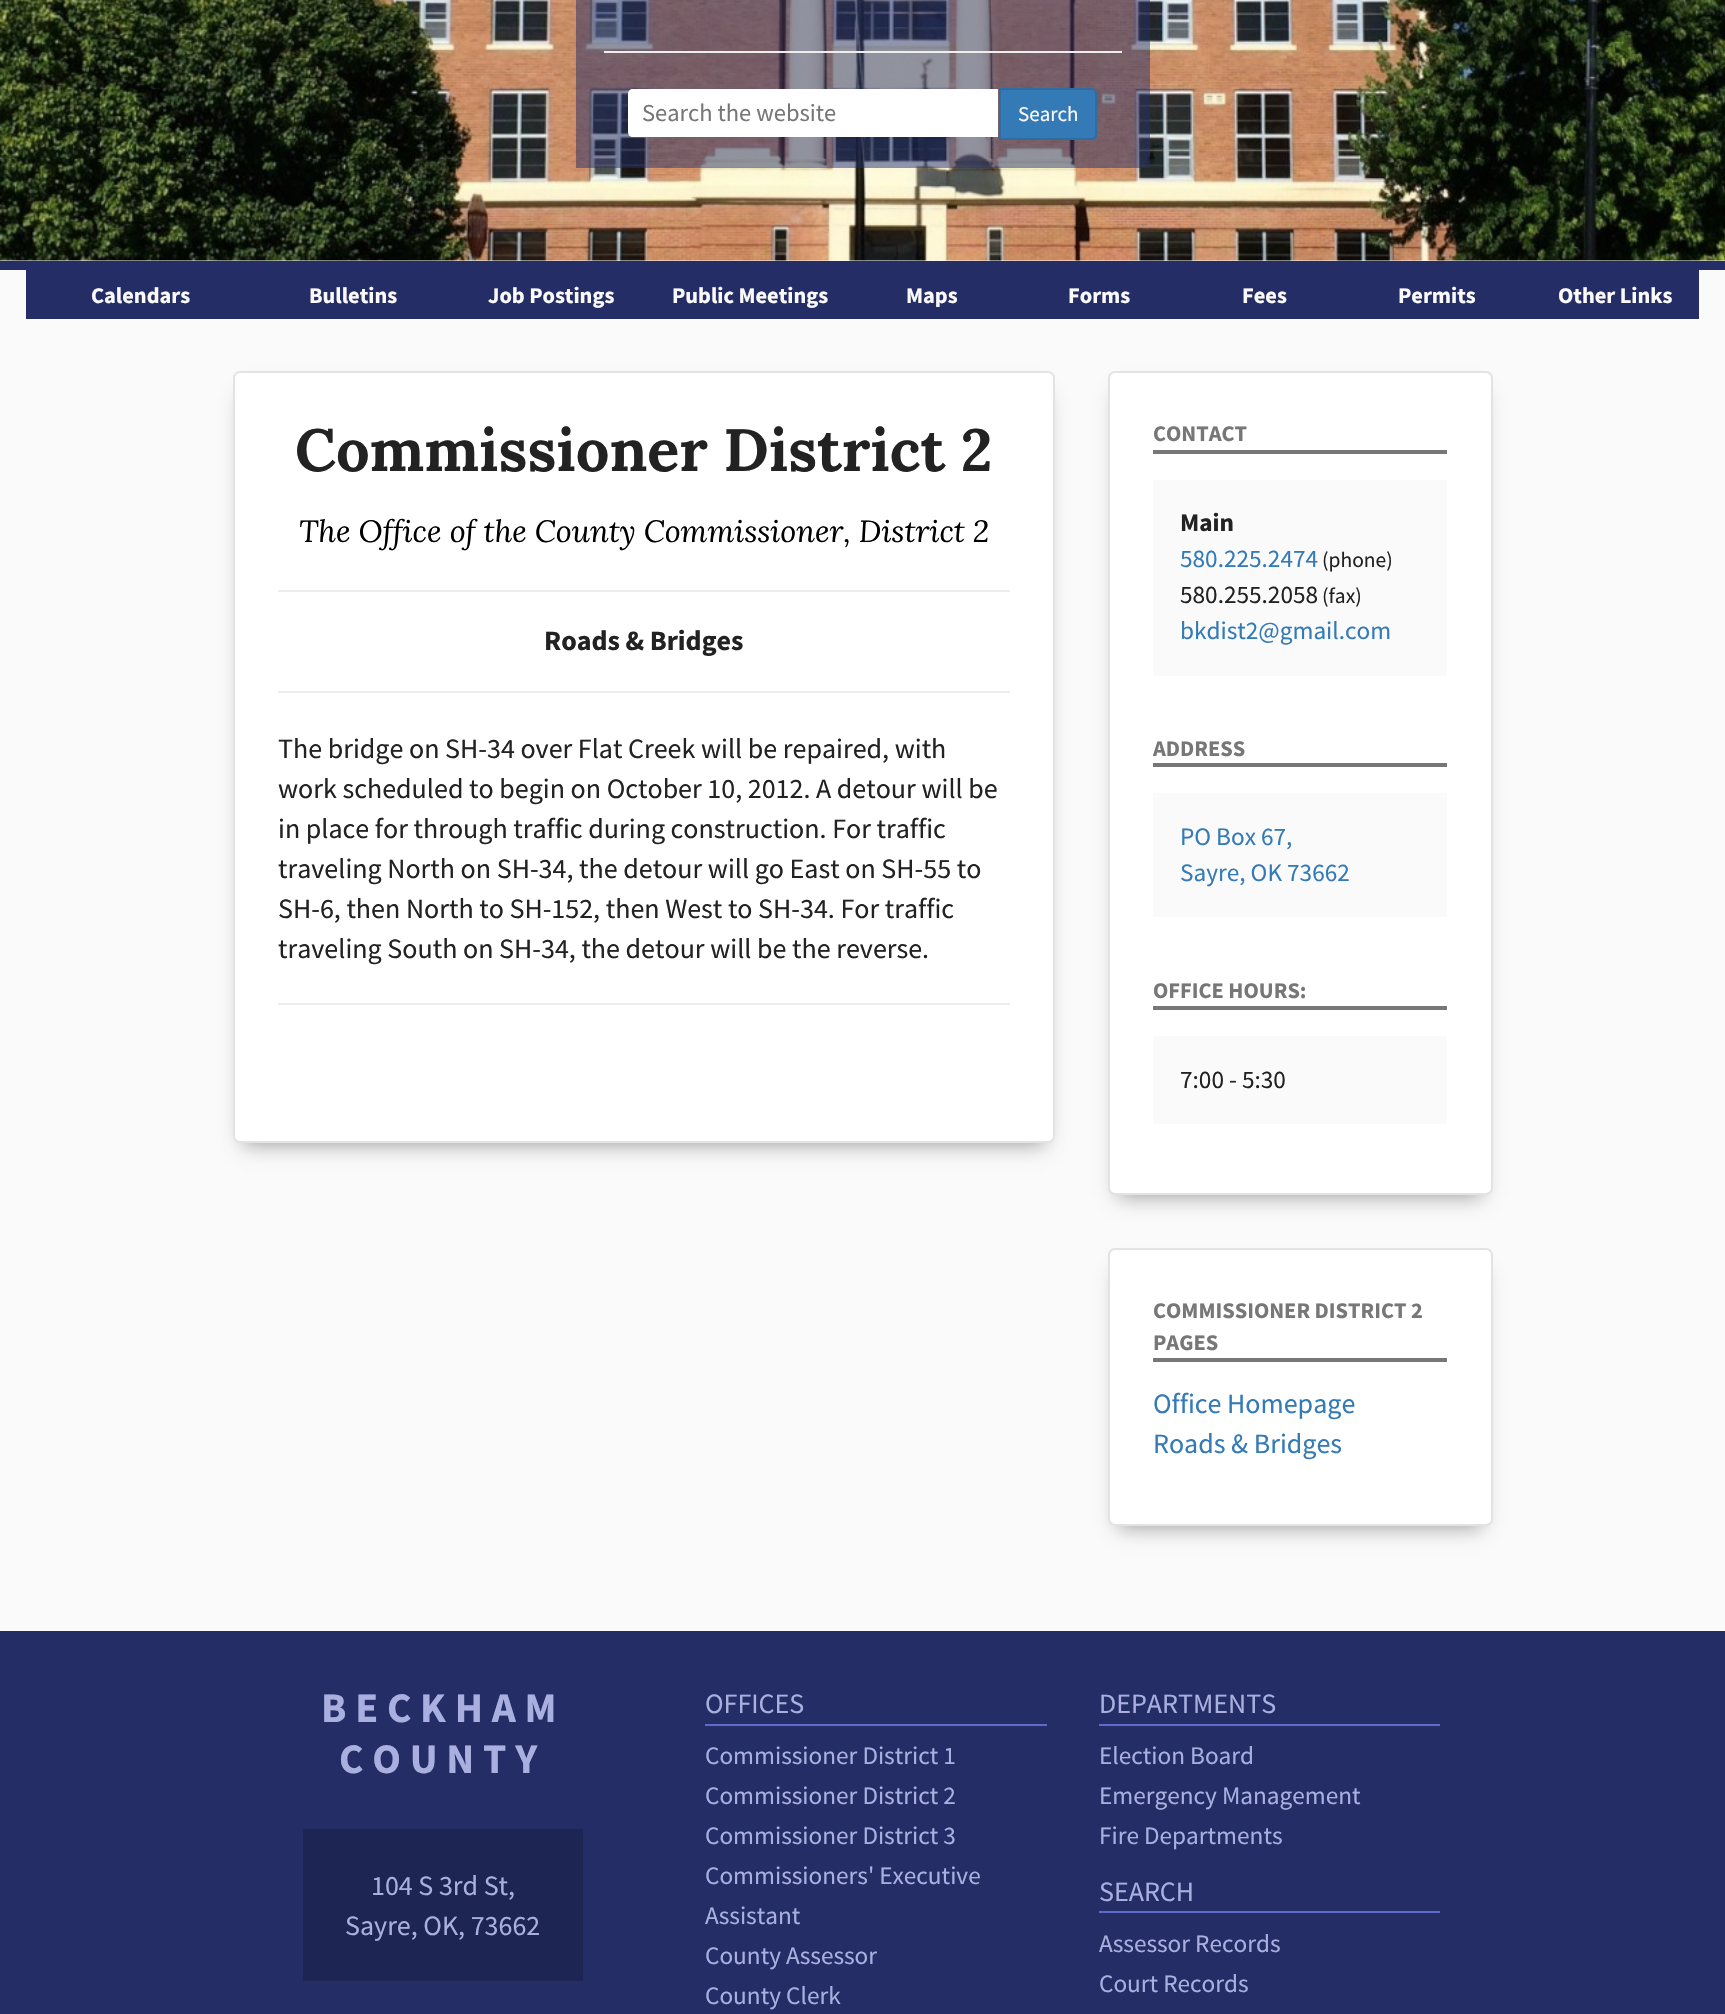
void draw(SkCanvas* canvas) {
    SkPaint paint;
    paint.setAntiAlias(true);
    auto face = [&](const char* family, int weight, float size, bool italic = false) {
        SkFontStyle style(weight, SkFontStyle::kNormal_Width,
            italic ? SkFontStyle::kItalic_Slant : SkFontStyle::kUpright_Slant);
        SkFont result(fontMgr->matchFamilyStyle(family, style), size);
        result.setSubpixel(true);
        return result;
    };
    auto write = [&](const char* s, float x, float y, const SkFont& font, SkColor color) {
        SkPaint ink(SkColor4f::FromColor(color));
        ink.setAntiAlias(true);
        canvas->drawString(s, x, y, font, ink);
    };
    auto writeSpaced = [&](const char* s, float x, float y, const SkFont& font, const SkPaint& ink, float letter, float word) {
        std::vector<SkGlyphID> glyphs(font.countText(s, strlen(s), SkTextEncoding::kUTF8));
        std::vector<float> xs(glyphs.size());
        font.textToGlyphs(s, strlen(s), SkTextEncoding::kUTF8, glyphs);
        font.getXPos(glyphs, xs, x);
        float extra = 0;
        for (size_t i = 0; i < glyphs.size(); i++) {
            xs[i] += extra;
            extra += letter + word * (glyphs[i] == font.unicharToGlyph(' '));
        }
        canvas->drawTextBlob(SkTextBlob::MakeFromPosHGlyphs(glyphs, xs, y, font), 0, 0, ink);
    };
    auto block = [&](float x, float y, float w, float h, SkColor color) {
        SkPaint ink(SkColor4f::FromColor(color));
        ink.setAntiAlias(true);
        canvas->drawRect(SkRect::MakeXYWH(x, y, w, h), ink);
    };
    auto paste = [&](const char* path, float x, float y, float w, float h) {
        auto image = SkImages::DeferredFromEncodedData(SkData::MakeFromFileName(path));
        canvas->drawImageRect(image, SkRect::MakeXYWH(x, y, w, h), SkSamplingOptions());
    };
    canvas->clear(SkColorSetRGB(250, 250, 250));
    paste("pic1.png", 0, 0, 1725, 261);
    block(576, 0, 574, 168, SkColorSetARGB(128, 36, 45, 102));
    block(604, 51, 518, 2, SkColorSetRGB(238, 238, 238));
    paint.setColor(SK_ColorWHITE);
    canvas->drawPath(SkPathBuilder().moveTo(633, 89).lineTo(998, 89).lineTo(998, 137).lineTo(633, 137).cubicTo(630, 137, 628, 135, 628, 132).lineTo(628, 94).cubicTo(628, 91, 630, 89, 633, 89).close().detach(), paint);
    auto kFont1 = face("Source Sans Pro", 400, 24.5f);
    write("Search the website", 642, 121, kFont1, SkColorSetRGB(119, 119, 119));
    paint.setColor(SkColorSetRGB(51, 122, 183));
    canvas->drawPath(SkPathBuilder().moveTo(1000, 89).lineTo(1092, 89).cubicTo(1094, 89, 1096, 91, 1096, 93).lineTo(1096, 135).cubicTo(1096, 137, 1094, 139, 1092, 139).lineTo(1000, 139).close().detach(), paint);
    paint.setStyle(SkPaint::kStroke_Style);
    paint.setStrokeWidth(2);
    paint.setColor(SkColorSetRGB(46, 109, 164));
    canvas->drawPath(SkPathBuilder().moveTo(1000, 89).lineTo(1092, 89).cubicTo(1094, 89, 1096, 91, 1096, 93).lineTo(1096, 135).cubicTo(1096, 137, 1094, 139, 1092, 139).lineTo(1000, 139).close().detach(), paint);
    auto kFont2 = face("Source Sans Pro", 400, 21);
    write("Search", 1018, 121, kFont2, SkColorSetRGB(250, 250, 250));
    block(0, 261, 1725, 9, SkColorSetRGB(36, 45, 102));
    block(26, 270, 1673, 49, SkColorSetRGB(36, 45, 102));
    auto kFont3 = face("Source Sans Pro", 700, 22.4f);
    write("Calendars", 91, 303, kFont3, SkColorSetRGB(250, 250, 250));
    write("Bulletins", 309, 303, kFont3, SkColorSetRGB(250, 250, 250));
    write("Job Postings", 488, 303, kFont3, SkColorSetRGB(250, 250, 250));
    write("Public Meetings", 672, 303, kFont3, SkColorSetRGB(250, 250, 250));
    write("Maps", 906, 303, kFont3, SkColorSetRGB(250, 250, 250));
    write("Forms", 1068, 303, kFont3, SkColorSetRGB(250, 250, 250));
    write("Fees", 1242, 303, kFont3, SkColorSetRGB(250, 250, 250));
    write("Permits", 1398, 303, kFont3, SkColorSetRGB(250, 250, 250));
    write("Other Links", 1558, 303, kFont3, SkColorSetRGB(250, 250, 250));
    paint.setStyle(SkPaint::kFill_Style);
    paint.setColor(SkColorSetARGB(92, 0, 0, 0));
    paint.setMaskFilter(SkMaskFilter::MakeBlur(kNormal_SkBlurStyle, 9.5f));
    canvas->drawRect(SkRect::MakeXYWH(243, 394, 802, 751), paint);
    paint.setMaskFilter(nullptr);
    paint.setColor(SK_ColorWHITE);
    canvas->drawRoundRect(SkRect::MakeXYWH(234, 372, 820, 770), 6, 6, paint);
    paint.setStyle(SkPaint::kStroke_Style);
    paint.setColor(SkColorSetRGB(227, 227, 227));
    canvas->drawRoundRect(SkRect::MakeXYWH(234, 372, 820, 770), 6, 6, paint);
    auto kFont4 = face("Lora", 700, 59.5f);
    write("Commissioner District 2", 295, 471, kFont4, SkColorSetRGB(34, 34, 34));
    auto kFont5 = face("Lora", 400, 30.6f, true);
    write("The Office of the County Commissioner, District 2", 299, 542, kFont5, SK_ColorBLACK);
    block(278, 590, 732, 2, SkColorSetRGB(238, 238, 238));
    auto kFont6 = face("Source Sans Pro", 700, 28);
    write("Roads & Bridges", 544, 650, kFont6, SkColorSetRGB(34, 34, 34));
    block(278, 691, 732, 2, SkColorSetRGB(238, 238, 238));
    auto kFont7 = face("Source Sans Pro", 400, 28);
    write("The bridge on SH-34 over Flat Creek will be repaired, with", 278, 758, kFont7, SkColorSetRGB(34, 34, 34));
    write("work scheduled to begin on October 10, 2012. A detour will be", 278, 798, kFont7, SkColorSetRGB(34, 34, 34));
    write("in place for through traffic during construction. For traffic", 278, 838, kFont7, SkColorSetRGB(34, 34, 34));
    write("traveling North on SH-34, the detour will go East on SH-55 to", 278, 878, kFont7, SkColorSetRGB(34, 34, 34));
    write("SH-6, then North to SH-152, then West to SH-34. For traffic", 278, 918, kFont7, SkColorSetRGB(34, 34, 34));
    write("traveling South on SH-34, the detour will be the reverse.", 278, 958, kFont7, SkColorSetRGB(34, 34, 34));
    block(278, 1003, 732, 2, SkColorSetRGB(238, 238, 238));
    paint.setStyle(SkPaint::kFill_Style);
    paint.setColor(SkColorSetARGB(92, 0, 0, 0));
    paint.setMaskFilter(SkMaskFilter::MakeBlur(kNormal_SkBlurStyle, 9.5f));
    canvas->drawRect(SkRect::MakeXYWH(1118, 394, 364, 803), paint);
    paint.setMaskFilter(nullptr);
    paint.setColor(SK_ColorWHITE);
    canvas->drawRoundRect(SkRect::MakeXYWH(1109, 372, 383, 822), 6, 6, paint);
    paint.setStyle(SkPaint::kStroke_Style);
    paint.setColor(SkColorSetRGB(227, 227, 227));
    canvas->drawRoundRect(SkRect::MakeXYWH(1109, 372, 383, 822), 6, 6, paint);
    write("CONTACT", 1153, 441, kFont3, SkColorSetRGB(119, 119, 119));
    block(1153, 450, 294, 4, SkColorSetRGB(119, 119, 119));
    block(1153, 480, 294, 196, SkColorSetRGB(250, 250, 250));
    auto kFont8 = face("Source Sans Pro", 700, 25.25f);
    write("Main", 1180, 531, kFont8, SkColorSetRGB(34, 34, 34));
    auto kFont9 = face("Source Sans Pro", 400, 25.25f);
    write("580.225.2474", 1180, 567, kFont9, SkColorSetRGB(51, 122, 183));
    auto kFont10 = face("Source Sans Pro", 400, 21.5f);
    write("(phone)", 1322, 567, kFont10, SkColorSetRGB(34, 34, 34));
    write("580.255.2058", 1180, 603, kFont9, SkColorSetRGB(34, 34, 34));
    write("(fax)", 1322, 603, kFont10, SkColorSetRGB(34, 34, 34));
    write("bkdist2@gmail.com", 1180, 639, kFont9, SkColorSetRGB(51, 122, 183));
    write("ADDRESS", 1153, 756, kFont3, SkColorSetRGB(119, 119, 119));
    block(1153, 763, 294, 4, SkColorSetRGB(119, 119, 119));
    block(1153, 793, 294, 124, SkColorSetRGB(250, 250, 250));
    write("PO Box 67,", 1180, 845, kFont9, SkColorSetRGB(51, 122, 183));
    write("Sayre, OK 73662", 1180, 881, kFont9, SkColorSetRGB(51, 122, 183));
    write("OFFICE HOURS:", 1153, 998, kFont3, SkColorSetRGB(119, 119, 119));
    block(1153, 1006, 294, 4, SkColorSetRGB(119, 119, 119));
    block(1153, 1036, 294, 88, SkColorSetRGB(250, 250, 250));
    write("7:00 - 5:30", 1180, 1088, kFont9, SkColorSetRGB(34, 34, 34));
    paint.setStyle(SkPaint::kFill_Style);
    paint.setColor(SkColorSetARGB(92, 0, 0, 0));
    paint.setMaskFilter(SkMaskFilter::MakeBlur(kNormal_SkBlurStyle, 9.5f));
    canvas->drawRect(SkRect::MakeXYWH(1118, 1271, 364, 257), paint);
    paint.setMaskFilter(nullptr);
    paint.setColor(SK_ColorWHITE);
    canvas->drawRoundRect(SkRect::MakeXYWH(1109, 1249, 383, 276), 6, 6, paint);
    paint.setStyle(SkPaint::kStroke_Style);
    paint.setColor(SkColorSetRGB(227, 227, 227));
    canvas->drawRoundRect(SkRect::MakeXYWH(1109, 1249, 383, 276), 6, 6, paint);
    write("COMMISSIONER DISTRICT 2", 1153, 1318, kFont3, SkColorSetRGB(119, 119, 119));
    write("PAGES", 1153, 1350, kFont3, SkColorSetRGB(119, 119, 119));
    block(1153, 1358, 294, 4, SkColorSetRGB(119, 119, 119));
    write("Office Homepage", 1153, 1413, kFont7, SkColorSetRGB(51, 122, 183));
    write("Roads & Bridges", 1153, 1453, kFont7, SkColorSetRGB(51, 122, 183));
    block(0, 1631, 1725, 383, SkColorSetRGB(36, 45, 102));
    auto kFont11 = face("Source Sans Pro", 700, 42);
    paint.setStyle(SkPaint::kFill_Style);
    paint.setColor(SkColorSetRGB(169, 176, 224));
    writeSpaced("BECKHAM", 321, 1722, kFont11, paint, 8.75f, 0);
    writeSpaced("COUNTY", 339, 1773, kFont11, paint, 8.75f, 0);
    block(303, 1829, 280, 152, SkColorSetRGB(29, 37, 83));
    write("104 S 3rd St,", 371, 1895, kFont7, SkColorSetRGB(169, 176, 224));
    write("Sayre, OK, 73662", 345, 1935, kFont7, SkColorSetRGB(169, 176, 224));
    block(705, 1724, 342, 2, SkColorSetRGB(92, 107, 204));
    write("OFFICES", 705, 1713, kFont7, SkColorSetRGB(169, 176, 224));
    write("Commissioner District 1", 705, 1764, kFont9, SkColorSetRGB(169, 176, 224));
    write("Commissioner District 2", 705, 1804, kFont9, SkColorSetRGB(169, 176, 224));
    write("Commissioner District 3", 705, 1844, kFont9, SkColorSetRGB(169, 176, 224));
    write("Commissioners' Executive", 705, 1884, kFont9, SkColorSetRGB(169, 176, 224));
    write("Assistant", 705, 1924, kFont9, SkColorSetRGB(169, 176, 224));
    write("County Assessor", 705, 1964, kFont9, SkColorSetRGB(169, 176, 224));
    write("County Clerk", 705, 2004, kFont9, SkColorSetRGB(169, 176, 224));
    block(1099, 1724, 341, 2, SkColorSetRGB(92, 107, 204));
    write("DEPARTMENTS", 1099, 1713, kFont7, SkColorSetRGB(169, 176, 224));
    write("Election Board", 1099, 1764, kFont9, SkColorSetRGB(169, 176, 224));
    write("Emergency Management", 1099, 1804, kFont9, SkColorSetRGB(169, 176, 224));
    write("Fire Departments", 1099, 1844, kFont9, SkColorSetRGB(169, 176, 224));
    block(1099, 1911, 341, 2, SkColorSetRGB(92, 107, 204));
    write("SEARCH", 1099, 1901, kFont7, SkColorSetRGB(169, 176, 224));
    write("Assessor Records", 1099, 1952, kFont9, SkColorSetRGB(169, 176, 224));
    write("Court Records", 1099, 1992, kFont9, SkColorSetRGB(169, 176, 224));
}
